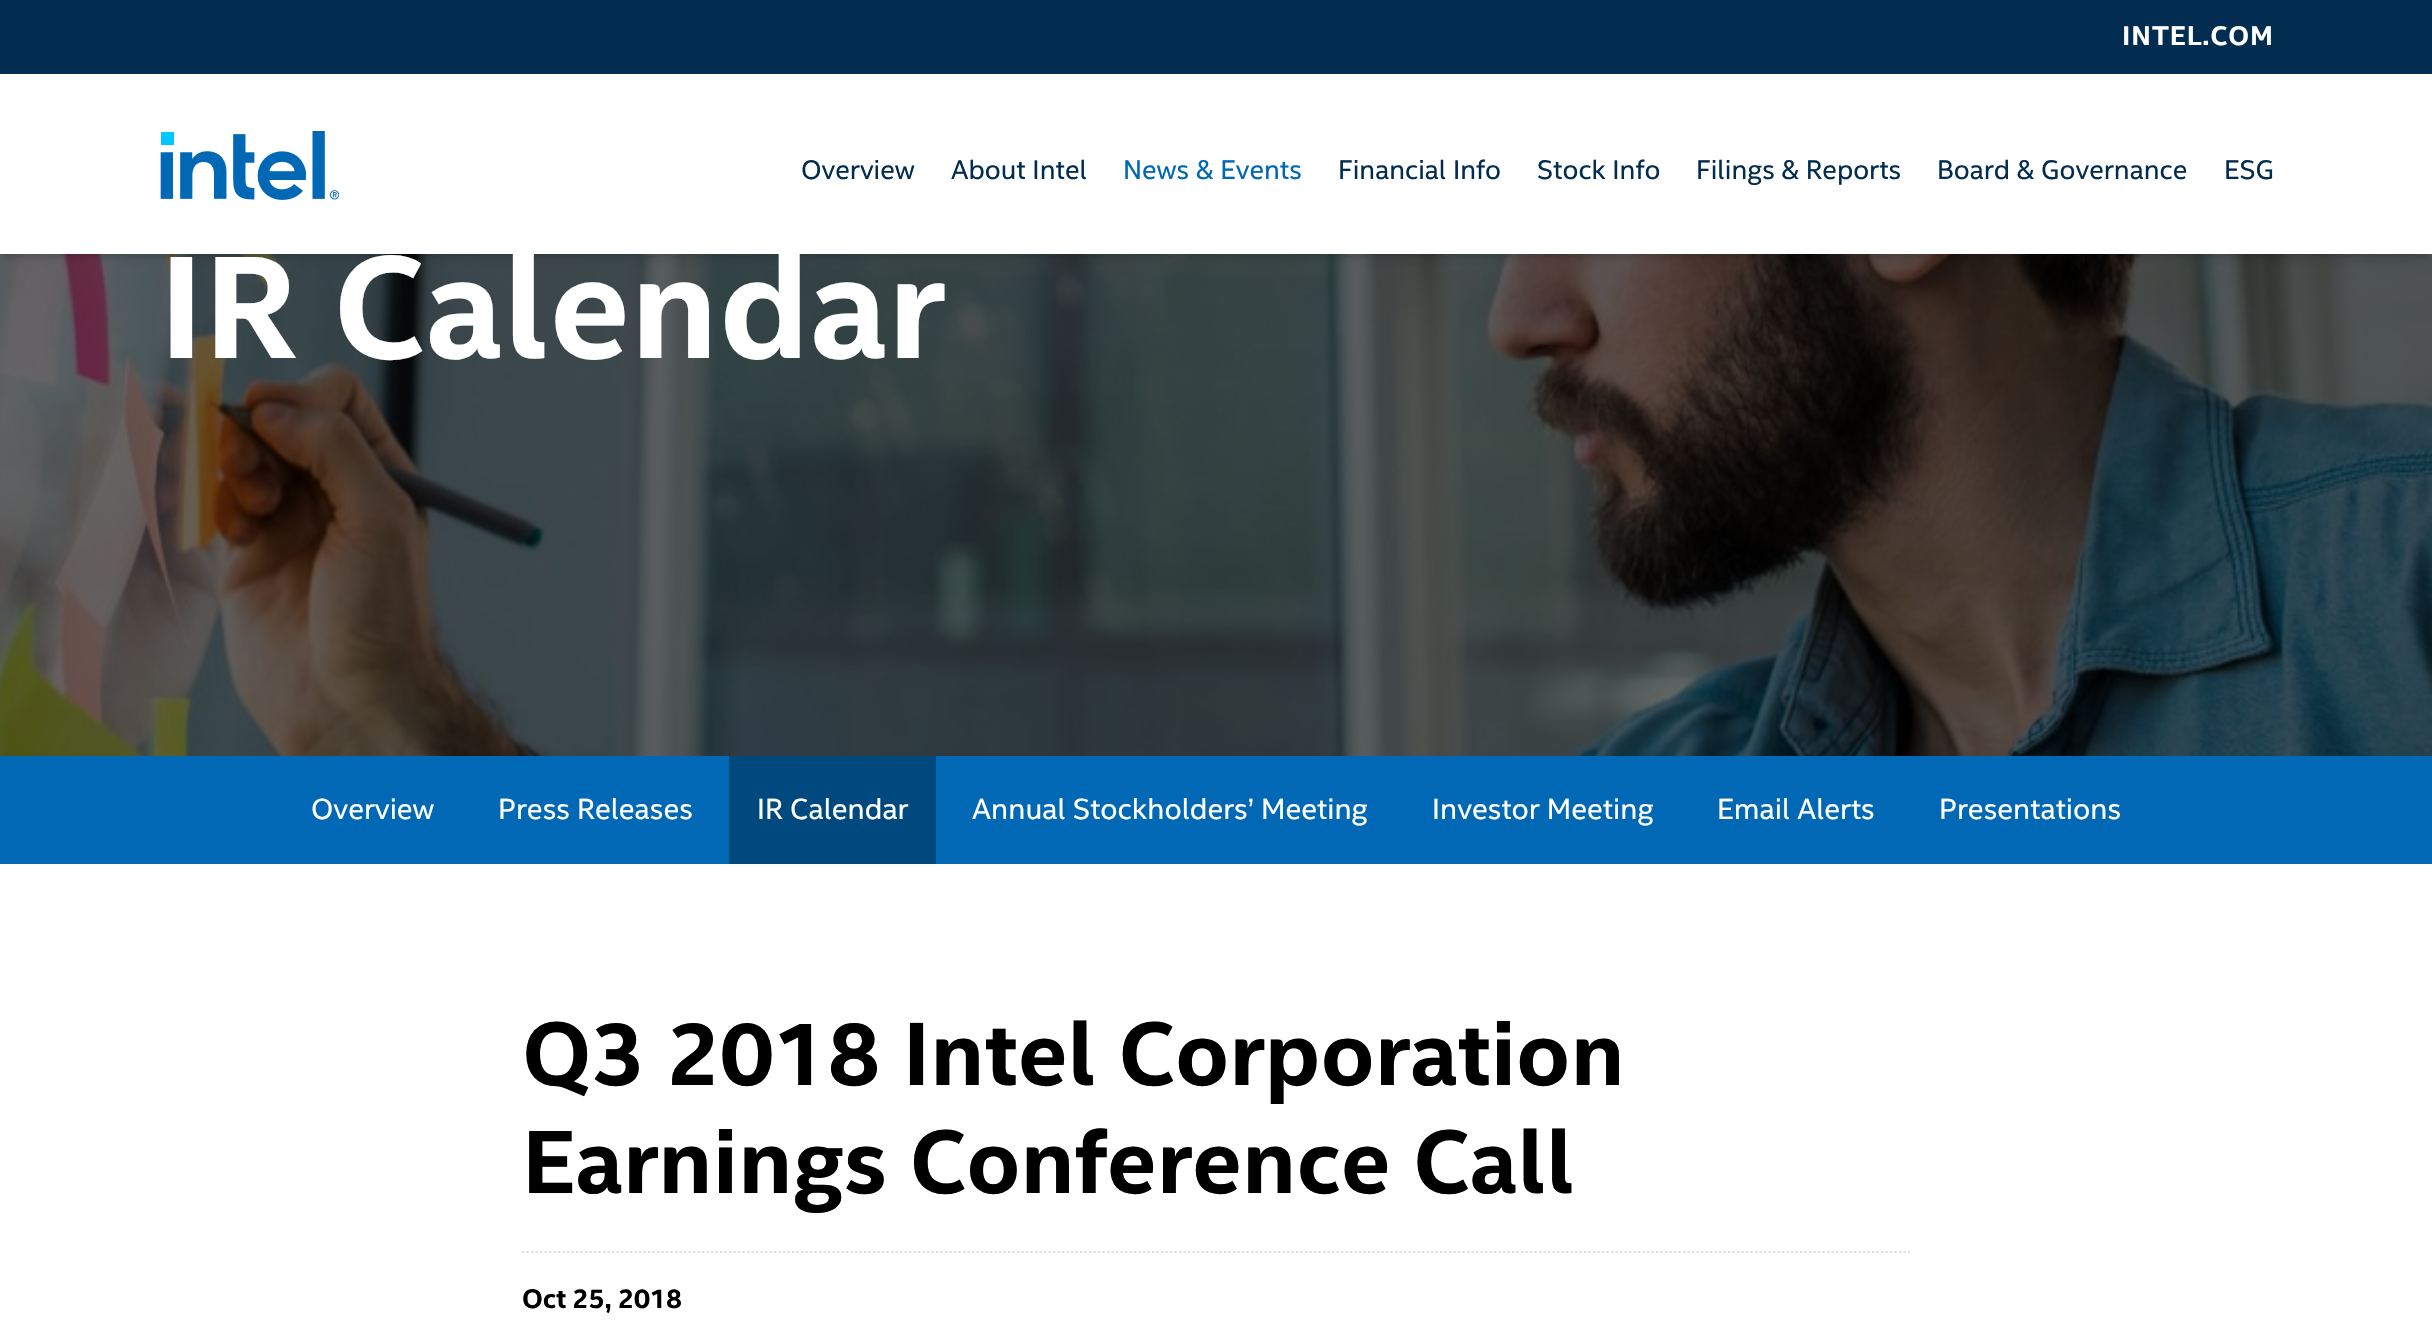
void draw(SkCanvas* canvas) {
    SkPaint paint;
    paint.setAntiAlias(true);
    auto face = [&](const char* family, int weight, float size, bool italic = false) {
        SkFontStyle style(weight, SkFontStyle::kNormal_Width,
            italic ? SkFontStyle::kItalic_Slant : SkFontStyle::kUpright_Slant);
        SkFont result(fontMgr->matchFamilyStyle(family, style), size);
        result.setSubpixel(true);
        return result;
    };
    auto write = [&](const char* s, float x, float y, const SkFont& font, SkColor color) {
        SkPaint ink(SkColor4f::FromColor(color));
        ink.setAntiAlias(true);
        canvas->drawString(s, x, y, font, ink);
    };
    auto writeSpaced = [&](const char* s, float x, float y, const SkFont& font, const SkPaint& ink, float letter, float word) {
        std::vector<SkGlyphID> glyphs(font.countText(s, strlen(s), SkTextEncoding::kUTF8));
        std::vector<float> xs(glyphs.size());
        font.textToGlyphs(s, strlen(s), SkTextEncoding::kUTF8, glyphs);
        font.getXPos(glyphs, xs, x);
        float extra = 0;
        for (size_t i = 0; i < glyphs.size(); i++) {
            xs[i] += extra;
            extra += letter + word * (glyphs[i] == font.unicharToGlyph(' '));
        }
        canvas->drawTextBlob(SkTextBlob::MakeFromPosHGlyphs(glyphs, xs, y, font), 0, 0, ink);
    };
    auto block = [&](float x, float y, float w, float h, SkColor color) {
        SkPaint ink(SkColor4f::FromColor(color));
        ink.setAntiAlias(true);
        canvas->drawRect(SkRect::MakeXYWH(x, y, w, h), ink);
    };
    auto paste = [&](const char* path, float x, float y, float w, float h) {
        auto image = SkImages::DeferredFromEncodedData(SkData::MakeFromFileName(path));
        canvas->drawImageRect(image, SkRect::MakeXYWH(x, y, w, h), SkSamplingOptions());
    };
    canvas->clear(SK_ColorWHITE);
    paste("pic2.png", 0, 254, 2432, 502);
    paint.setColor(SkColorSetARGB(77, 0, 0, 0));
    paint.setMaskFilter(SkMaskFilter::MakeBlur(kNormal_SkBlurStyle, 5.5f));
    canvas->drawRect(SkRect::MakeXYWH(0, 0, 2432, 254), paint);
    paint.setMaskFilter(nullptr);
    block(0, 74, 2432, 180, SK_ColorWHITE);
    block(0, 0, 2432, 74, SkColorSetRGB(2, 45, 81));
    auto kFont1 = face("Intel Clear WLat", 700, 27);
    paint.setColor(SK_ColorWHITE);
    writeSpaced("INTEL.COM", 2122, 45, kFont1, paint, 1, 0);
    paste("pic1.png", 160, 131, 179, 69);
    auto kFont2 = face("Intel Clear WLat", 400, 27);
    write("Overview", 801, 179, kFont2, SkColorSetRGB(2, 45, 81));
    write("About Intel", 951, 179, kFont2, SkColorSetRGB(2, 45, 81));
    write("News & Events", 1123, 179, kFont2, SkColorSetRGB(0, 104, 181));
    write("Financial Info", 1338, 179, kFont2, SkColorSetRGB(2, 45, 81));
    write("Stock Info", 1537, 179, kFont2, SkColorSetRGB(2, 45, 81));
    write("Filings & Reports", 1696, 179, kFont2, SkColorSetRGB(2, 45, 81));
    write("Board & Governance", 1937, 179, kFont2, SkColorSetRGB(2, 45, 81));
    write("ESG", 2224, 179, kFont2, SkColorSetRGB(2, 45, 81));
    auto kFont3 = face("Intel Clear WLat", 700, 146.25f);
    write("IR Calendar", 159, 358, kFont3, SK_ColorWHITE);
    block(0, 756, 2432, 108, SkColorSetRGB(0, 104, 181));
    auto kFont4 = face("Intel Clear WLat", 400, 29.25f);
    write("Overview", 311, 819, kFont4, SK_ColorWHITE);
    write("Press Releases", 498, 819, kFont4, SK_ColorWHITE);
    block(729, 756, 207, 108, SkColorSetRGB(0, 73, 127));
    write("IR Calendar", 757, 819, kFont4, SK_ColorWHITE);
    write("Annual Stockholders’ Meeting", 972, 819, kFont4, SK_ColorWHITE);
    write("Investor Meeting", 1432, 819, kFont4, SK_ColorWHITE);
    write("Email Alerts", 1717, 819, kFont4, SK_ColorWHITE);
    write("Presentations", 1939, 819, kFont4, SK_ColorWHITE);
    auto kFont5 = face("Intel Clear WLat", 700, 90);
    write("Q3 2018 Intel Corporation", 522, 1085, kFont5, SK_ColorBLACK);
    write("Earnings Conference Call", 522, 1193, kFont5, SK_ColorBLACK);
    paint.setStyle(SkPaint::kStroke_Style);
    paint.setStrokeWidth(2.2f);
    paint.setColor(SkColorSetRGB(221, 221, 221));
    paint.setPathEffect(SkDashPathEffect::Make({{2.25f, 2.25f}}, 0));
    canvas->drawPath(SkPathBuilder().moveTo(522, 1252).lineTo(1910, 1252).detach(), paint);
    paint.setPathEffect(nullptr);
    write("Oct 25, 2018", 522, 1308, kFont1, SK_ColorBLACK);
}
